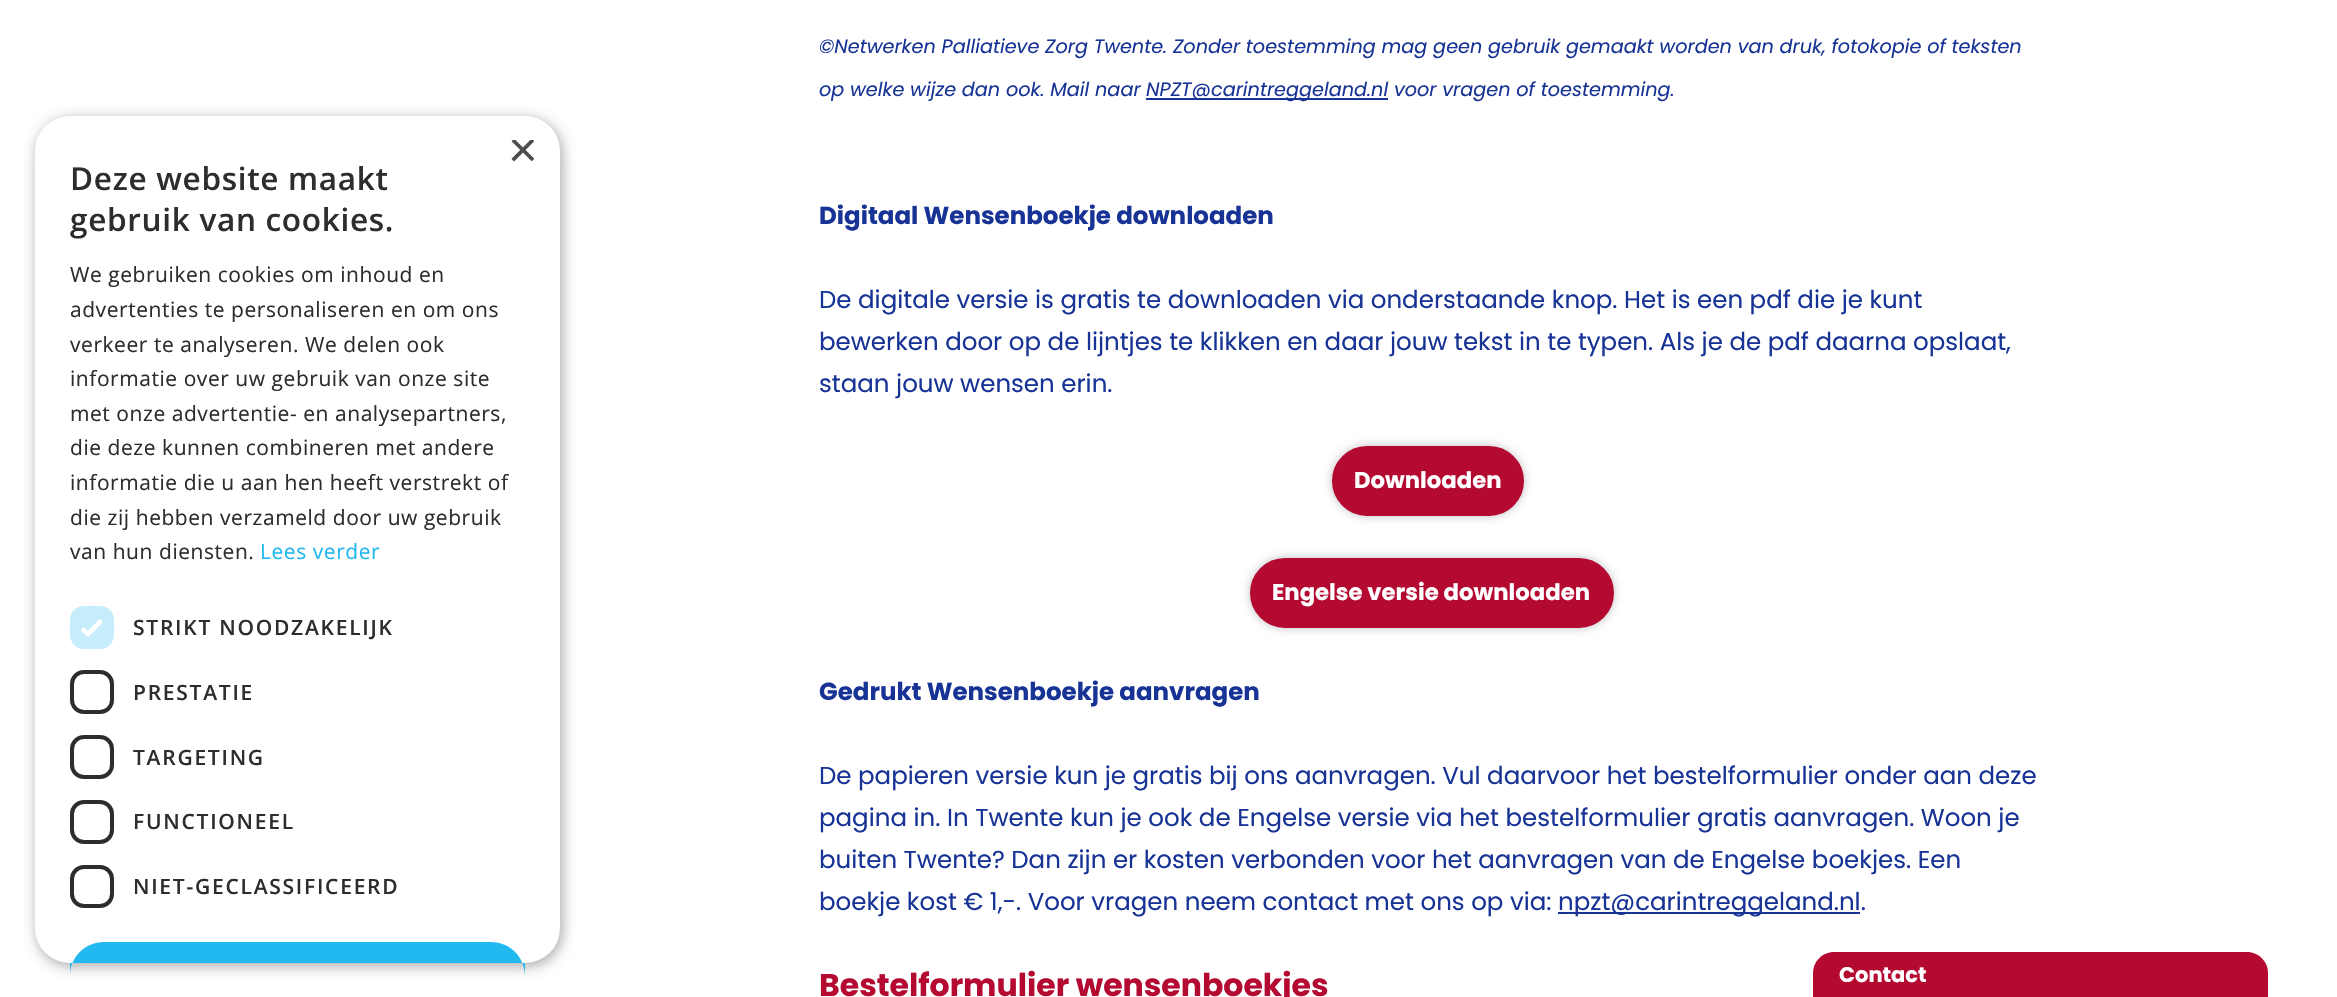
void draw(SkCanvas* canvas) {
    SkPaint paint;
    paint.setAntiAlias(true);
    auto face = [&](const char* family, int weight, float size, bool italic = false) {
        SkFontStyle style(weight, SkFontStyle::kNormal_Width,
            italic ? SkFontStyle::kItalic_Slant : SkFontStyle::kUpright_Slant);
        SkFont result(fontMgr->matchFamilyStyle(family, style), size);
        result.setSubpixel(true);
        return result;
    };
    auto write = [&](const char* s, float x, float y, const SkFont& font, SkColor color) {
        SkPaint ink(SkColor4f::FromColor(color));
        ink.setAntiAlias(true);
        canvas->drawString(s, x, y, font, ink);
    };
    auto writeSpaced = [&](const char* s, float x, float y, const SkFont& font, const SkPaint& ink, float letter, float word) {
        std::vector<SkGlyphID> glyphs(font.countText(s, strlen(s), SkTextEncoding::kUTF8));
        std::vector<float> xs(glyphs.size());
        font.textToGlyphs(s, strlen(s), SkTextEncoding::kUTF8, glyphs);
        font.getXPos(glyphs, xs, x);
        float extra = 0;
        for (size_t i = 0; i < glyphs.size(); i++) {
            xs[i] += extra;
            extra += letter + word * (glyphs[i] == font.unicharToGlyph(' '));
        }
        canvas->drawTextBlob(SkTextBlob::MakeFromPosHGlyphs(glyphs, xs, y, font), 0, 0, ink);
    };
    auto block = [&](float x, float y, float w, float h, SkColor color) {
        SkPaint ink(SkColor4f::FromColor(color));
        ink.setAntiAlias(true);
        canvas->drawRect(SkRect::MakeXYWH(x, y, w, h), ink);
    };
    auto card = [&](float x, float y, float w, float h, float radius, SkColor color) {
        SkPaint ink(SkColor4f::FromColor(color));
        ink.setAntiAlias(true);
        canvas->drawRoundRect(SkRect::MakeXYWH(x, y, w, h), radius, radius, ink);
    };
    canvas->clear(SK_ColorWHITE);
    paint.setColor(SkColorSetARGB(89, 0, 0, 0));
    paint.setMaskFilter(SkMaskFilter::MakeBlur(kNormal_SkBlurStyle, 7));
    canvas->drawRoundRect(SkRect::MakeXYWH(37, 119, 525, 847), 35, 35, paint);
    paint.setMaskFilter(nullptr);
    card(35, 116, 525, 847, 35, SK_ColorWHITE);
    canvas->save();
    canvas->clipRect(SkRect::MakeXYWH(508, 140, 26, 26));
    auto kFont1 = face("Liberation Sans", 400, 51);
    write("×", 508, 167, kFont1, SkColorSetRGB(77, 77, 77));
    canvas->restore();
    auto kFont2 = face("Open Sans", 600, 31.5f);
    paint.setColor(SkColorSetRGB(45, 45, 45));
    writeSpaced("Deze website maakt", 70, 190, kFont2, paint, 0.7f, 0);
    writeSpaced("gebruik van cookies.", 70, 231, kFont2, paint, 0.7f, 0);
    auto kFont3 = face("Open Sans", 400, 21);
    writeSpaced("We gebruiken cookies om inhoud en", 70, 282, kFont3, paint, 0.55f, 0);
    writeSpaced("advertenties te personaliseren en om ons", 70, 317, kFont3, paint, 0.55f, 0);
    writeSpaced("verkeer te analyseren. We delen ook", 70, 352, kFont3, paint, 0.55f, 0);
    writeSpaced("informatie over uw gebruik van onze site", 70, 386, kFont3, paint, 0.55f, 0);
    writeSpaced("met onze advertentie- en analysepartners,", 70, 421, kFont3, paint, 0.55f, 0);
    writeSpaced("die deze kunnen combineren met andere", 70, 455, kFont3, paint, 0.55f, 0);
    writeSpaced("informatie die u aan hen heeft verstrekt of", 70, 490, kFont3, paint, 0.55f, 0);
    writeSpaced("die zij hebben verzameld door uw gebruik", 70, 525, kFont3, paint, 0.55f, 0);
    writeSpaced("van hun diensten.", 70, 559, kFont3, paint, 0.55f, 0);
    paint.setColor(SkColorSetRGB(34, 184, 240));
    writeSpaced("Lees verder", 260, 559, kFont3, paint, 0.55f, 0);
    card(70, 606, 44, 43, 14, SkColorSetRGB(198, 237, 251));
    paint.setStyle(SkPaint::kStroke_Style);
    paint.setStrokeWidth(4.6f);
    paint.setColor(SK_ColorWHITE);
    canvas->drawPath(SkPathBuilder().moveTo(82, 628.5f).lineTo(88, 634).lineTo(101.5f, 620.5f).detach(), paint);
    auto kFont4 = face("Open Sans", 600, 21);
    paint.setStyle(SkPaint::kFill_Style);
    paint.setColor(SkColorSetRGB(45, 45, 45));
    writeSpaced("STRIKT NOODZAKELIJK", 133, 635, kFont4, paint, 1.75f, 0);
    paint.setStyle(SkPaint::kStroke_Style);
    paint.setStrokeWidth(4);
    canvas->drawRoundRect(SkRect::MakeXYWH(72, 672, 40, 40), 12, 12, paint);
    paint.setStyle(SkPaint::kFill_Style);
    writeSpaced("PRESTATIE", 133, 700, kFont4, paint, 1.75f, 0);
    paint.setStyle(SkPaint::kStroke_Style);
    canvas->drawRoundRect(SkRect::MakeXYWH(72, 737, 40, 40), 12, 12, paint);
    paint.setStyle(SkPaint::kFill_Style);
    writeSpaced("TARGETING", 133, 765, kFont4, paint, 1.75f, 0);
    paint.setStyle(SkPaint::kStroke_Style);
    canvas->drawRoundRect(SkRect::MakeXYWH(72, 802, 40, 40), 12, 12, paint);
    paint.setStyle(SkPaint::kFill_Style);
    writeSpaced("FUNCTIONEEL", 133, 829, kFont4, paint, 1.75f, 0);
    paint.setStyle(SkPaint::kStroke_Style);
    canvas->drawRoundRect(SkRect::MakeXYWH(72, 867, 40, 39), 12, 12, paint);
    paint.setStyle(SkPaint::kFill_Style);
    writeSpaced("NIET-GECLASSIFICEERD", 133, 894, kFont4, paint, 1.75f, 0);
    paint.setColor(SkColorSetRGB(34, 184, 240));
    canvas->drawPath(SkPathBuilder().moveTo(104, 942).lineTo(491, 942).cubicTo(510, 942, 525, 957, 525, 976).lineTo(525, 963).lineTo(70, 963).lineTo(70, 976).cubicTo(70, 957, 85, 942, 104, 942).close().detach(), paint);
    auto kFont5 = face("Poppins", 400, 19.25f, true);
    write("©Netwerken Palliatieve Zorg Twente. Zonder toestemming mag geen gebruik gemaakt worden van druk, fotokopie of teksten", 819, 53, kFont5, SkColorSetRGB(23, 51, 149));
    write("op welke wijze dan ook. Mail naar", 819, 96, kFont5, SkColorSetRGB(23, 51, 149));
    block(1146, 98, 242, 2, SkColorSetRGB(23, 51, 149));
    write("NPZT@carintreggeland.nl voor vragen of toestemming.", 1146, 96, kFont5, SkColorSetRGB(23, 51, 149));
    auto kFont6 = face("Poppins", 700, 24.5f);
    write("Digitaal Wensenboekje downloaden", 819, 224, kFont6, SkColorSetRGB(23, 51, 149));
    auto kFont7 = face("Poppins", 400, 24.5f);
    write("De digitale versie is gratis te downloaden via onderstaande knop. Het is een pdf die je kunt", 819, 308, kFont7, SkColorSetRGB(23, 51, 149));
    write("bewerken door op de lijntjes te klikken en daar jouw tekst in te typen. Als je de pdf daarna opslaat,", 819, 350, kFont7, SkColorSetRGB(23, 51, 149));
    write("staan jouw wensen erin.", 819, 392, kFont7, SkColorSetRGB(23, 51, 149));
    paint.setColor(SkColorSetARGB(64, 0, 0, 0));
    paint.setMaskFilter(SkMaskFilter::MakeBlur(kNormal_SkBlurStyle, 5));
    canvas->drawRoundRect(SkRect::MakeXYWH(1332, 446, 192, 70), 35, 35, paint);
    paint.setMaskFilter(nullptr);
    paint.setColor(SkColorSetRGB(180, 9, 49));
    canvas->drawRoundRect(SkRect::MakeXYWH(1333, 447, 190, 68), 34, 34, paint);
    paint.setStyle(SkPaint::kStroke_Style);
    paint.setStrokeWidth(2);
    canvas->drawRoundRect(SkRect::MakeXYWH(1333, 447, 190, 68), 34, 34, paint);
    auto kFont8 = face("Poppins", 700, 22.75f);
    write("Downloaden", 1354, 488, kFont8, SK_ColorWHITE);
    paint.setStyle(SkPaint::kFill_Style);
    paint.setColor(SkColorSetARGB(64, 0, 0, 0));
    paint.setMaskFilter(SkMaskFilter::MakeBlur(kNormal_SkBlurStyle, 5));
    canvas->drawRoundRect(SkRect::MakeXYWH(1250, 558, 364, 70), 35, 35, paint);
    paint.setMaskFilter(nullptr);
    paint.setColor(SkColorSetRGB(180, 9, 49));
    canvas->drawRoundRect(SkRect::MakeXYWH(1251, 559, 362, 68), 34, 34, paint);
    paint.setStyle(SkPaint::kStroke_Style);
    canvas->drawRoundRect(SkRect::MakeXYWH(1251, 559, 362, 68), 34, 34, paint);
    write("Engelse versie downloaden", 1272, 600, kFont8, SK_ColorWHITE);
    write("Gedrukt Wensenboekje aanvragen", 819, 700, kFont6, SkColorSetRGB(23, 51, 149));
    write("De papieren versie kun je gratis bij ons aanvragen. Vul daarvoor het bestelformulier onder aan deze", 819, 784, kFont7, SkColorSetRGB(23, 51, 149));
    write("pagina in. In Twente kun je ook de Engelse versie via het bestelformulier gratis aanvragen. Woon je", 819, 826, kFont7, SkColorSetRGB(23, 51, 149));
    write("buiten Twente? Dan zijn er kosten verbonden voor het aanvragen van de Engelse boekjes. Een", 819, 868, kFont7, SkColorSetRGB(23, 51, 149));
    write("boekje kost € 1,-. Voor vragen neem contact met ons op via:", 819, 910, kFont7, SkColorSetRGB(23, 51, 149));
    block(1558, 912, 302, 2, SkColorSetRGB(23, 51, 149));
    write("npzt@carintreggeland.nl.", 1558, 910, kFont7, SkColorSetRGB(23, 51, 149));
    auto kFont9 = face("Poppins", 700, 31.5f);
    write("Bestelformulier wensenboekjes", 819, 996, kFont9, SkColorSetRGB(180, 9, 49));
    paint.setStyle(SkPaint::kFill_Style);
    canvas->drawPath(SkPathBuilder().moveTo(1834, 952).lineTo(2247, 952).cubicTo(2258.5f, 952, 2268, 961.5f, 2268, 973).lineTo(2268, 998).lineTo(1813, 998).lineTo(1813, 973).cubicTo(1813, 961.5f, 1822.5f, 952, 1834, 952).close().detach(), paint);
    auto kFont10 = face("Poppins", 700, 21);
    write("Contact", 1839, 982, kFont10, SK_ColorWHITE);
}
